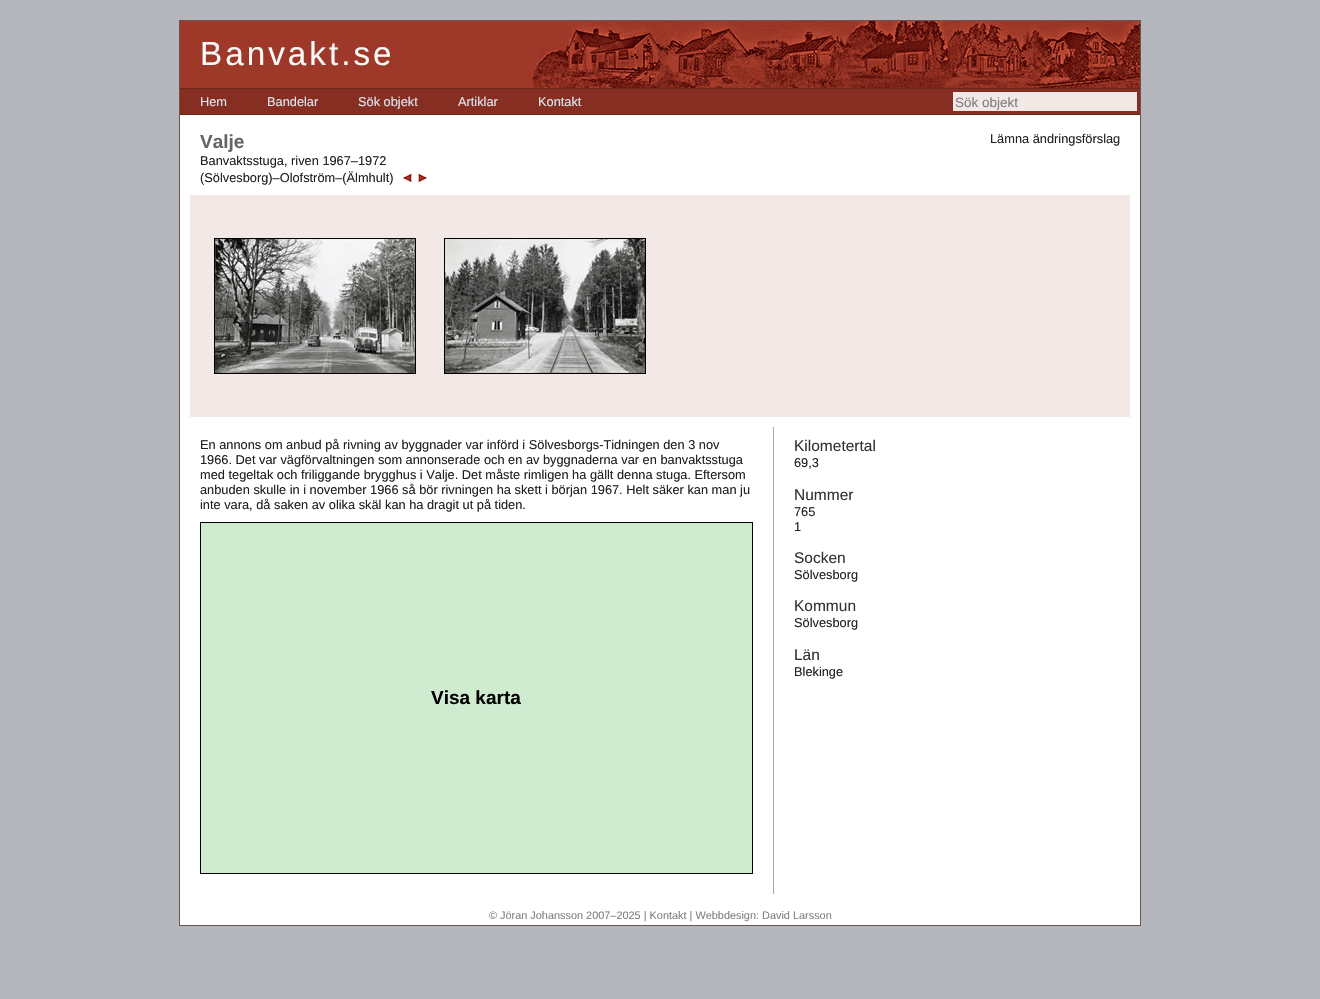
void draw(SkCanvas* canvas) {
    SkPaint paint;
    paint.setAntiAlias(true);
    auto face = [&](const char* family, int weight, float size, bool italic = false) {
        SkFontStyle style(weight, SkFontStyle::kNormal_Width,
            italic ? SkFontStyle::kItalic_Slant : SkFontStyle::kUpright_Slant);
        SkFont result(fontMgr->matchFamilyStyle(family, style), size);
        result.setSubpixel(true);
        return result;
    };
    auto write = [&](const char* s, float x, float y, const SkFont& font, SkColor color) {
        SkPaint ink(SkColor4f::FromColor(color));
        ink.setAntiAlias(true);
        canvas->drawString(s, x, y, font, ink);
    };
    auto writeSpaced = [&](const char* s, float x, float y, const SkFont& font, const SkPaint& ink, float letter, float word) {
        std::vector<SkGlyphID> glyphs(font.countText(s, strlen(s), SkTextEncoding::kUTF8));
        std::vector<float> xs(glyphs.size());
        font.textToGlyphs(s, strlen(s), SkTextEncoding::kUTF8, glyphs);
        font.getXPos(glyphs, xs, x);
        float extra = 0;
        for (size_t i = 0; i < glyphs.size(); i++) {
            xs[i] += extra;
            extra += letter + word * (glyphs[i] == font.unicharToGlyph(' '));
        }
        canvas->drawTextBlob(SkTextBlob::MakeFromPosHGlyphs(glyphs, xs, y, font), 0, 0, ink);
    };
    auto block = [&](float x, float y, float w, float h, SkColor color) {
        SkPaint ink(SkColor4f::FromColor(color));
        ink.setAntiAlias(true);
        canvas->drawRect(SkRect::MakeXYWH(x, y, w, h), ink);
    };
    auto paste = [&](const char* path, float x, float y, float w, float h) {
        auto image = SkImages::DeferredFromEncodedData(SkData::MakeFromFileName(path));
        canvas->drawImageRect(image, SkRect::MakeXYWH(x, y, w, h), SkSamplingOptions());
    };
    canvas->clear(SkColorSetRGB(182, 183, 188));
    block(180, 115, 960, 810, SK_ColorWHITE);
    paint.setStyle(SkPaint::kStroke_Style);
    paint.setStrokeWidth(1);
    paint.setColor(SkColorSetRGB(107, 84, 80));
    canvas->drawRect(SkRect::MakeXYWH(179.5f, 20.5f, 961, 905), paint);
    block(180, 21, 352, 67, SkColorSetRGB(158, 56, 40));
    auto kFont1 = face("Liberation Sans", 400, 33.25f);
    paint.setStyle(SkPaint::kFill_Style);
    paint.setColor(SkColorSetRGB(249, 249, 249));
    writeSpaced("Banvakt.se", 200, 65, kFont1, paint, 3, 0);
    paste("pic1.png", 532, 21, 608, 67);
    block(180, 89, 960, 25, SkColorSetRGB(133, 46, 33));
    block(180, 88, 960, 1, SkColorSetRGB(107, 37, 27));
    block(180, 114, 960, 1, SkColorSetRGB(107, 37, 27));
    auto kFont2 = face("Liberation Sans", 400, 12.8f);
    write("Hem", 200, 106, kFont2, SkColorSetRGB(221, 228, 236));
    write("Bandelar", 267, 106, kFont2, SkColorSetRGB(221, 228, 236));
    write("Sök objekt", 358, 106, kFont2, SkColorSetRGB(221, 228, 236));
    write("Artiklar", 458, 106, kFont2, SkColorSetRGB(221, 228, 236));
    write("Kontakt", 538, 106, kFont2, SkColorSetRGB(221, 228, 236));
    block(953, 92, 184, 19, SkColorSetRGB(242, 232, 230));
    auto kFont3 = face("Liberation Sans", 400, 13.5f);
    write("Sök objekt", 955, 107, kFont3, SkColorSetRGB(128, 128, 128));
    auto kFont4 = face("Liberation Sans", 700, 19);
    write("Valje", 200, 148, kFont4, SkColorSetRGB(102, 102, 102));
    write("Lämna ändringsförslag", 990, 143, kFont2, SkColorSetRGB(32, 32, 32));
    write("Banvaktsstuga, riven 1967–1972", 200, 165, kFont2, SkColorSetRGB(32, 32, 32));
    write("(Sölvesborg)–Olofström–(Älmhult)", 200, 182, kFont2, SkColorSetRGB(32, 32, 32));
    paste("pic2.png", 401, 173, 11, 10);
    paste("pic3.png", 418, 173, 11, 10);
    block(190, 195, 940, 222, SkColorSetRGB(242, 232, 230));
    paste("pic4.png", 214, 238, 202, 136);
    paste("pic5.png", 444, 238, 202, 136);
    block(773, 427, 1, 467, SkColorSetRGB(170, 170, 170));
    write("En annons om anbud på rivning av byggnader var införd i Sölvesborgs-Tidningen den 3 nov", 200, 449, kFont2, SkColorSetRGB(32, 32, 32));
    write("1966. Det var vägförvaltningen som annonserade och en av byggnaderna var en banvaktsstuga", 200, 464, kFont2, SkColorSetRGB(32, 32, 32));
    write("med tegeltak och friliggande brygghus i Valje. Det måste rimligen ha gällt denna stuga. Eftersom", 200, 479, kFont2, SkColorSetRGB(32, 32, 32));
    write("anbuden skulle in i november 1966 så bör rivningen ha skett i början 1967. Helt säker kan man ju", 200, 494, kFont2, SkColorSetRGB(32, 32, 32));
    write("inte vara, då saken av olika skäl kan ha dragit ut på tiden.", 200, 509, kFont2, SkColorSetRGB(32, 32, 32));
    paint.setColor(SkColorSetRGB(207, 236, 209));
    canvas->drawRect(SkRect::MakeXYWH(200.5f, 522.5f, 552, 351), paint);
    paint.setStyle(SkPaint::kStroke_Style);
    paint.setColor(SK_ColorBLACK);
    canvas->drawRect(SkRect::MakeXYWH(200.5f, 522.5f, 552, 351), paint);
    write("Visa karta", 431, 704, kFont4, SK_ColorBLACK);
    auto kFont5 = face("Liberation Sans", 400, 15.5f);
    write("Kilometertal", 794, 451, kFont5, SkColorSetRGB(51, 51, 51));
    write("69,3", 794, 467, kFont2, SkColorSetRGB(32, 32, 32));
    write("Nummer", 794, 500, kFont5, SkColorSetRGB(51, 51, 51));
    write("765", 794, 516, kFont2, SkColorSetRGB(32, 32, 32));
    write("1", 794, 531, kFont2, SkColorSetRGB(32, 32, 32));
    write("Socken", 794, 563, kFont5, SkColorSetRGB(51, 51, 51));
    write("Sölvesborg", 794, 579, kFont2, SkColorSetRGB(32, 32, 32));
    write("Kommun", 794, 611, kFont5, SkColorSetRGB(51, 51, 51));
    write("Sölvesborg", 794, 627, kFont2, SkColorSetRGB(32, 32, 32));
    write("Län", 794, 660, kFont5, SkColorSetRGB(51, 51, 51));
    write("Blekinge", 794, 676, kFont2, SkColorSetRGB(32, 32, 32));
    auto kFont6 = face("Liberation Sans", 400, 10.9f);
    write("© Jöran Johansson 2007–2025 | Kontakt | Webbdesign: David Larsson", 489, 919, kFont6, SkColorSetRGB(128, 128, 128));
}
